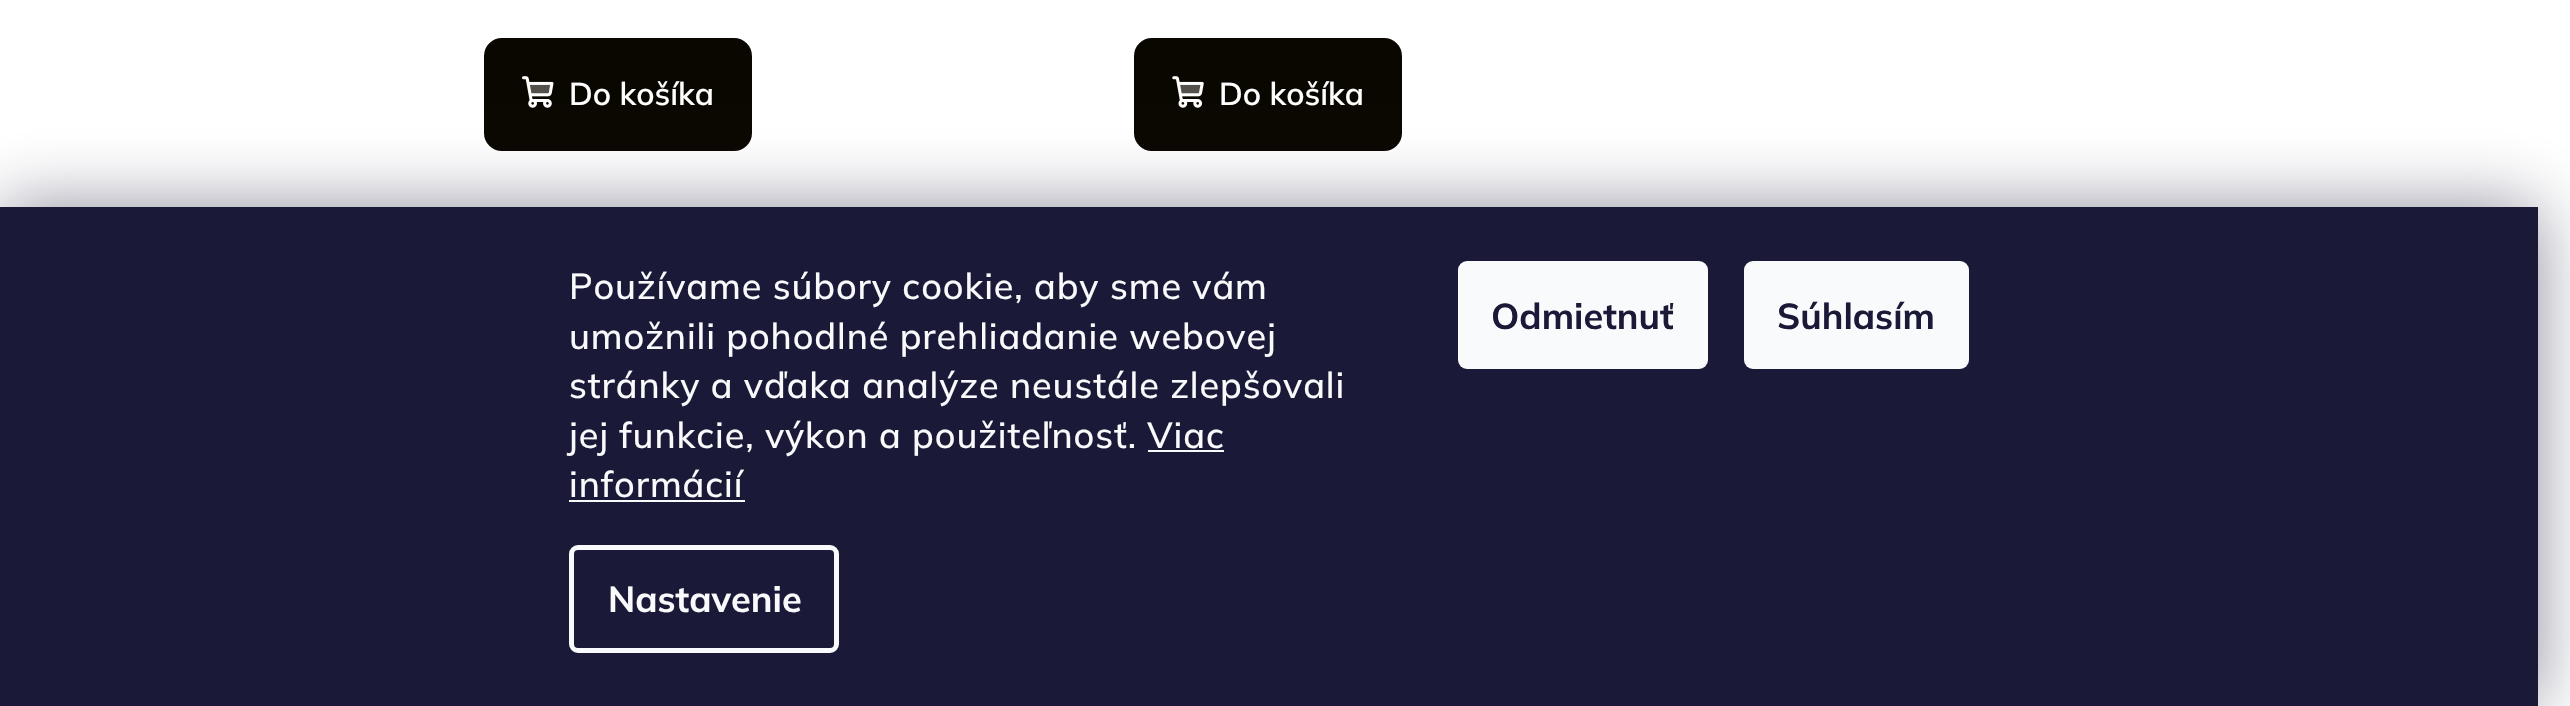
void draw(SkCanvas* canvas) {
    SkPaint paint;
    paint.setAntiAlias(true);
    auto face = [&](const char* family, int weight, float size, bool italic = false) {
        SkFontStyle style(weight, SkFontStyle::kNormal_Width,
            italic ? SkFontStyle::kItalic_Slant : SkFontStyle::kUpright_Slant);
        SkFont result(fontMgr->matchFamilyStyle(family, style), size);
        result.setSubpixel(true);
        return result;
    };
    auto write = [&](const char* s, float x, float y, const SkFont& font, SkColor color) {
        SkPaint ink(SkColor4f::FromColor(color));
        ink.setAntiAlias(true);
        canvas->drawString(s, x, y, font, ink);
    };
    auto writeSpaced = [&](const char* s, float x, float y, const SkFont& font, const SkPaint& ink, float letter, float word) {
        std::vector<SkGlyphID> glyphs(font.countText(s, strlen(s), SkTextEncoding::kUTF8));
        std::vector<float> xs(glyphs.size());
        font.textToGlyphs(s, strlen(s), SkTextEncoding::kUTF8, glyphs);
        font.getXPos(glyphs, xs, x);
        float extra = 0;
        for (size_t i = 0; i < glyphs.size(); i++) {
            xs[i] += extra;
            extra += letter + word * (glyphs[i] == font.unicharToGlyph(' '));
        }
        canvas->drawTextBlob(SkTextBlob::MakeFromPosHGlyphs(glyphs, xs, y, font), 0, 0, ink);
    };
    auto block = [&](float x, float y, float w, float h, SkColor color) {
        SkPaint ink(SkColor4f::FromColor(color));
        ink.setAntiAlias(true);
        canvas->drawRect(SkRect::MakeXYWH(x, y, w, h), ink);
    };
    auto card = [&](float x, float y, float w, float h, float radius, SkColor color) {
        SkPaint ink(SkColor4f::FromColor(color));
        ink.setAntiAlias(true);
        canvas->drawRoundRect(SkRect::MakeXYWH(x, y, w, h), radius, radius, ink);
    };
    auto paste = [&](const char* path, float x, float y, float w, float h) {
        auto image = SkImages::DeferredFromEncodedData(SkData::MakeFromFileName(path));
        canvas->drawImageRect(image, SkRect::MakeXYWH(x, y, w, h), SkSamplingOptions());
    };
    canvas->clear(SK_ColorWHITE);
    paint.setColor(SkColorSetRGB(10, 6, 0));
    canvas->drawRoundRect(SkRect::MakeXYWH(485, 39, 266, 111), 17, 17, paint);
    paint.setStyle(SkPaint::kStroke_Style);
    paint.setStrokeWidth(2);
    canvas->drawRoundRect(SkRect::MakeXYWH(485, 39, 266, 111), 17, 17, paint);
    paste("pic1.png", 522, 76, 32, 32);
    auto kFont1 = face("Mulish", 600, 31.5f);
    write("Do košíka", 569, 105, kFont1, SK_ColorWHITE);
    paint.setStyle(SkPaint::kFill_Style);
    paint.setColor(SkColorSetARGB(77, 255, 255, 255));
    canvas->drawPath(SkPathBuilder().moveTo(530, 95).lineTo(545, 95).cubicTo(549, 95, 550, 95.5f, 550.5f, 91.5f).lineTo(552, 83.5f).lineTo(528, 83.5f).close().detach(), paint);
    paint.setColor(SkColorSetRGB(10, 6, 0));
    canvas->drawRoundRect(SkRect::MakeXYWH(1135, 39, 266, 111), 17, 17, paint);
    paint.setStyle(SkPaint::kStroke_Style);
    canvas->drawRoundRect(SkRect::MakeXYWH(1135, 39, 266, 111), 17, 17, paint);
    paste("pic2.png", 1172, 76, 32, 32);
    write("Do košíka", 1219, 105, kFont1, SK_ColorWHITE);
    paint.setStyle(SkPaint::kFill_Style);
    paint.setColor(SkColorSetARGB(77, 255, 255, 255));
    canvas->drawPath(SkPathBuilder().moveTo(1180.5f, 95).lineTo(1195.5f, 95).cubicTo(1199.5f, 95, 1200, 95.5f, 1201, 91.5f).lineTo(1202, 83.5f).lineTo(1178.5f, 83.5f).close().detach(), paint);
    paint.setColor(SkColorSetARGB(128, 27, 25, 57));
    paint.setMaskFilter(SkMaskFilter::MakeBlur(kNormal_SkBlurStyle, 34));
    canvas->drawRect(SkRect::MakeXYWH(0, 207, 2538, 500), paint);
    paint.setMaskFilter(nullptr);
    block(0, 207, 2538, 499, SkColorSetRGB(26, 25, 55));
    auto kFont2 = face("Mulish", 500, 36);
    paint.setColor(SkColorSetRGB(248, 250, 251));
    writeSpaced("Používame súbory cookie, aby sme vám", 569, 299, kFont2, paint, 0.9f, 0);
    writeSpaced("umožnili pohodlné prehliadanie webovej", 569, 349, kFont2, paint, 0.9f, 0);
    writeSpaced("stránky a vďaka analýze neustále zlepšovali", 569, 398, kFont2, paint, 0.9f, 0);
    writeSpaced("jej funkcie, výkon a použiteľnosť. Viac", 569, 448, kFont2, paint, 0.9f, 0);
    writeSpaced("informácií", 569, 497, kFont2, paint, 0.9f, 0);
    block(1148, 450, 76, 2, SkColorSetRGB(248, 250, 251));
    block(569, 500, 176, 2, SkColorSetRGB(248, 250, 251));
    paint.setStyle(SkPaint::kStroke_Style);
    paint.setStrokeWidth(5);
    canvas->drawRoundRect(SkRect::MakeXYWH(571.5f, 547.5f, 265, 103), 6.5f, 6.5f, paint);
    auto kFont3 = face("Mulish", 700, 36);
    write("Nastavenie", 608, 612, kFont3, SkColorSetRGB(248, 250, 251));
    card(1458, 261, 250, 108, 9, SkColorSetRGB(248, 250, 251));
    write("Odmietnuť", 1491, 329, kFont3, SkColorSetRGB(26, 25, 55));
    card(1744, 261, 225, 108, 9, SkColorSetRGB(248, 250, 251));
    write("Súhlasím", 1777, 329, kFont3, SkColorSetRGB(26, 25, 55));
}
